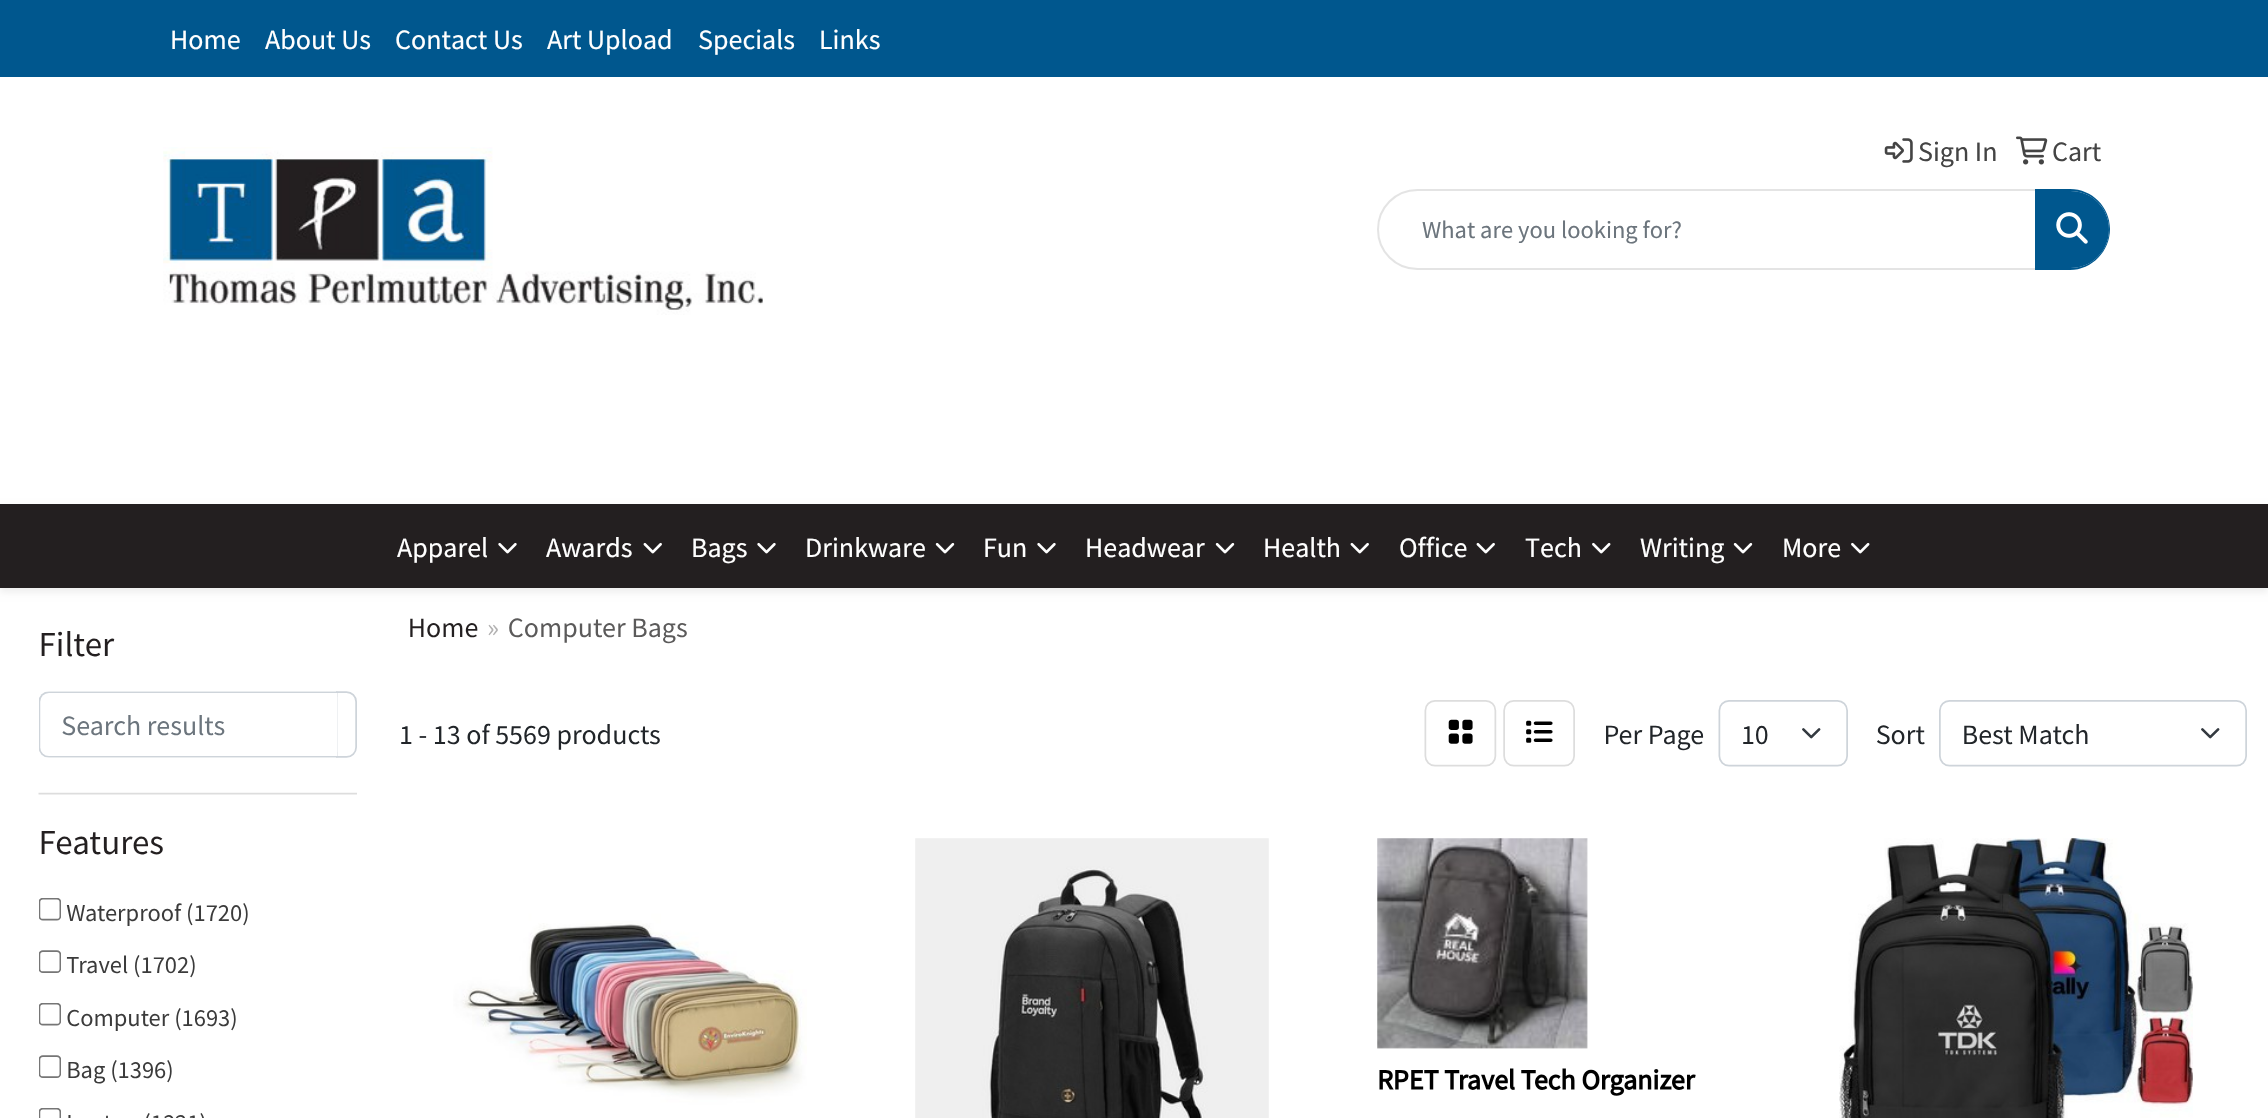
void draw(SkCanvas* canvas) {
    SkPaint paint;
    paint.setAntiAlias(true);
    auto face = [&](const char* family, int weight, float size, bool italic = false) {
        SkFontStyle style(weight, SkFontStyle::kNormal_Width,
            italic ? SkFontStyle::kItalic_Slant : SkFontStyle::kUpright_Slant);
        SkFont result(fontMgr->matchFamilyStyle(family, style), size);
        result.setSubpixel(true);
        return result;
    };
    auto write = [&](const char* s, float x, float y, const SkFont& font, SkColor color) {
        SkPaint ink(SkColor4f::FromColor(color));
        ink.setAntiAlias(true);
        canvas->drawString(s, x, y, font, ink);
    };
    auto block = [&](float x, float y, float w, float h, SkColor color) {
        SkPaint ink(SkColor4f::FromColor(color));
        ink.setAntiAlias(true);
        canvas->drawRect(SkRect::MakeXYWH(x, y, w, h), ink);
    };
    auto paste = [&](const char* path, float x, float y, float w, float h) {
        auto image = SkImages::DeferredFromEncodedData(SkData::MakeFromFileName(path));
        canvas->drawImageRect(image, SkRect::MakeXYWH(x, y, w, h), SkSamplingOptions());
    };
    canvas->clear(SK_ColorWHITE);
    block(0, 0, 2268, 77, SkColorSetRGB(0, 87, 142));
    auto kFont1 = face("Source Sans Pro", 400, 28);
    write("Home", 170, 49, kFont1, SK_ColorWHITE);
    write("About Us", 265, 49, kFont1, SK_ColorWHITE);
    write("Contact Us", 395, 49, kFont1, SK_ColorWHITE);
    write("Art Upload", 547, 49, kFont1, SK_ColorWHITE);
    write("Specials", 698, 49, kFont1, SK_ColorWHITE);
    write("Links", 819, 49, kFont1, SK_ColorWHITE);
    paste("pic1.png", 163, 147, 600, 168);
    paste("pic2.png", 1884, 138, 29, 25);
    write("Sign In", 1918, 161, kFont1, SkColorSetRGB(68, 68, 68));
    paste("pic3.png", 2016, 136, 32, 29);
    write("Cart", 2052, 161, kFont1, SkColorSetRGB(68, 68, 68));
    paint.setStyle(SkPaint::kStroke_Style);
    paint.setStrokeWidth(2);
    paint.setColor(SkColorSetRGB(228, 228, 228));
    canvas->drawPath(SkPathBuilder().moveTo(1417.5f, 190).lineTo(2036, 190).lineTo(2036, 269).lineTo(1417.5f, 269).cubicTo(1395.5f, 269, 1378, 251.5f, 1378, 229.5f).cubicTo(1378, 207.5f, 1395.5f, 190, 1417.5f, 190).close().detach(), paint);
    auto kFont2 = face("Source Sans Pro", 400, 24.5f);
    write("What are you looking for?", 1422, 238, kFont2, SkColorSetRGB(108, 117, 125));
    paint.setStyle(SkPaint::kFill_Style);
    paint.setColor(SkColorSetRGB(0, 87, 142));
    canvas->drawPath(SkPathBuilder().moveTo(2035, 191).lineTo(2070.5f, 191).cubicTo(2092, 191, 2109, 208, 2109, 229.5f).cubicTo(2109, 251, 2092, 268, 2070.5f, 268).lineTo(2035, 268).close().detach(), paint);
    canvas->drawPath(SkPathBuilder(SkPathFillType::kEvenOdd).moveTo(2035, 189).lineTo(2070, 189).cubicTo(2092, 189, 2110, 207, 2110, 229).cubicTo(2110, 251, 2092, 270, 2070, 270).lineTo(2035, 270).close().moveTo(2035, 191).lineTo(2070, 191).cubicTo(2092, 191, 2109, 208, 2109, 229).cubicTo(2109, 251, 2092, 268, 2070, 268).lineTo(2035, 268).close().detach(), paint);
    paste("pic4.png", 2056, 212, 32, 32);
    paint.setColor(SkColorSetARGB(18, 0, 0, 0));
    paint.setMaskFilter(SkMaskFilter::MakeBlur(kNormal_SkBlurStyle, 3.5f));
    canvas->drawRect(SkRect::MakeXYWH(0, 508, 2268, 84), paint);
    paint.setMaskFilter(nullptr);
    block(0, 504, 2268, 84, SkColorSetRGB(35, 31, 32));
    write("Apparel", 397, 557, kFont1, SK_ColorWHITE);
    paste("pic5.png", 498, 542, 19, 12);
    write("Awards", 546, 557, kFont1, SK_ColorWHITE);
    paste("pic6.png", 643, 542, 19, 12);
    write("Bags", 691, 557, kFont1, SK_ColorWHITE);
    paste("pic5.png", 757, 542, 19, 12);
    write("Drinkware", 805, 557, kFont1, SK_ColorWHITE);
    paste("pic7.png", 935, 543, 20, 11);
    write("Fun", 983, 557, kFont1, SK_ColorWHITE);
    paste("pic5.png", 1037, 542, 19, 12);
    write("Headwear", 1085, 557, kFont1, SK_ColorWHITE);
    paste("pic7.png", 1215, 543, 20, 11);
    write("Health", 1263, 557, kFont1, SK_ColorWHITE);
    paste("pic6.png", 1350, 542, 19, 12);
    write("Office", 1399, 557, kFont1, SK_ColorWHITE);
    paste("pic6.png", 1476, 542, 19, 12);
    write("Tech", 1525, 557, kFont1, SK_ColorWHITE);
    paste("pic8.png", 1592, 542, 19, 12);
    write("Writing", 1640, 557, kFont1, SK_ColorWHITE);
    paste("pic7.png", 1733, 543, 20, 11);
    write("More", 1782, 557, kFont1, SK_ColorWHITE);
    paste("pic8.png", 1851, 542, 19, 12);
    paste("pic9.png", 38, 618, 2209, 500);
}
